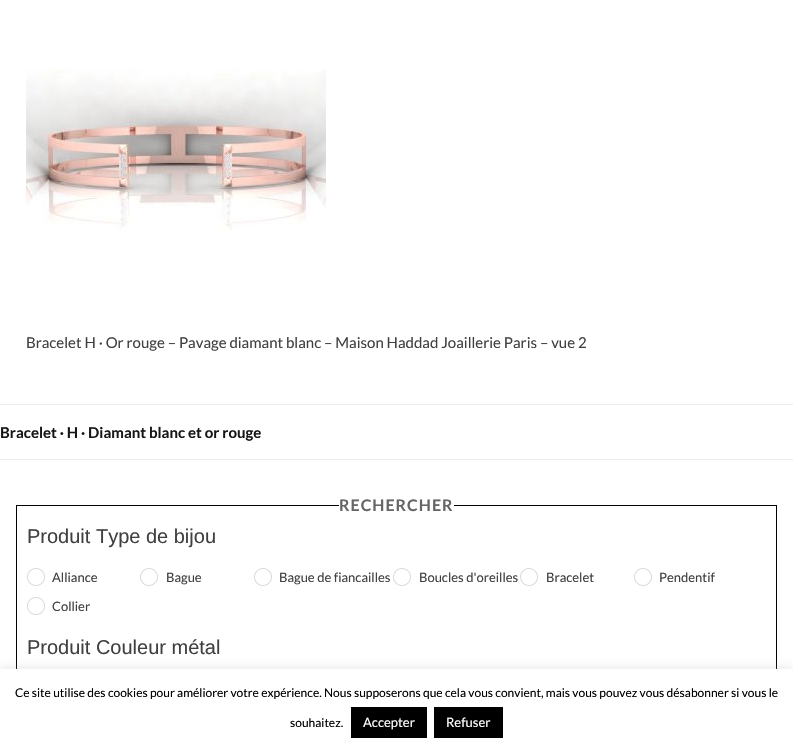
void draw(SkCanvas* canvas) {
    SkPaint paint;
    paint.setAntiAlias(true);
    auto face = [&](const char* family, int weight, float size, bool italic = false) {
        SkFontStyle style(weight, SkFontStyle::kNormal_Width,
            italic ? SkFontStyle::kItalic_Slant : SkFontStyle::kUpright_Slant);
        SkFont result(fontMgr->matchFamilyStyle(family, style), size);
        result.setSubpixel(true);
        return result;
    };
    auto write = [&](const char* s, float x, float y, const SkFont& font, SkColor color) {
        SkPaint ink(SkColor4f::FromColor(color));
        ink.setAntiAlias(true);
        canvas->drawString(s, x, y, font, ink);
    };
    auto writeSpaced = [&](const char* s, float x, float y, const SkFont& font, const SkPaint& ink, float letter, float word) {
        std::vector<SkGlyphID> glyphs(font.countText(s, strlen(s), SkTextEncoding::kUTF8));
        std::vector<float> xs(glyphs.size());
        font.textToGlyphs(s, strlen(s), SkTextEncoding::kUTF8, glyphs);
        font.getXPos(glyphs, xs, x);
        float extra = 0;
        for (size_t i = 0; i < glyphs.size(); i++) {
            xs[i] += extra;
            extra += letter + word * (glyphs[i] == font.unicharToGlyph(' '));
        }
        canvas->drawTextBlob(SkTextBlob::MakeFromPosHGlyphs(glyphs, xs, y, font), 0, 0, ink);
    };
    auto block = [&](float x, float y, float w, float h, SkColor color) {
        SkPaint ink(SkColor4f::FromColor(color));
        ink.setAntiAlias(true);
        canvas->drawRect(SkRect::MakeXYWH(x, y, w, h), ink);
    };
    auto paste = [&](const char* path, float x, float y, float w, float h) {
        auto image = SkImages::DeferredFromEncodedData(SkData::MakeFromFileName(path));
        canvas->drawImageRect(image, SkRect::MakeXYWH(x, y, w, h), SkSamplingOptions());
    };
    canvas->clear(SK_ColorWHITE);
    paste("pic1.png", 26, 69, 300, 164);
    auto kFont1 = face("Lato", 400, 15);
    write("Bracelet H · Or rouge – Pavage diamant blanc – Maison Haddad Joaillerie Paris – vue 2", 26, 348, kFont1, SkColorSetRGB(64, 64, 64));
    block(0, 404, 793, 1, SkColorSetRGB(235, 235, 235));
    block(0, 459, 793, 1, SkColorSetRGB(235, 235, 235));
    auto kFont2 = face("Lato", 700, 15);
    write("Bracelet · H · Diamant blanc et or rouge", 0, 438, kFont2, SkColorSetRGB(22, 22, 22));
    block(16, 505, 323, 1, SkColorSetRGB(5, 4, 4));
    auto kFont3 = face("Lato", 700, 16);
    paint.setColor(SkColorSetRGB(102, 102, 102));
    writeSpaced("RECHERCHER", 339, 511, kFont3, paint, 1, 0);
    block(454, 505, 323, 1, SkColorSetRGB(5, 4, 4));
    block(776, 505, 1, 164, SK_ColorBLACK);
    block(16, 505, 1, 164, SK_ColorBLACK);
    auto kFont4 = face("Liberation Sans", 400, 20);
    write("Produit Type de bijou", 27, 543, kFont4, SkColorSetRGB(64, 64, 64));
    paste("pic2.png", 27, 568, 18, 18);
    auto kFont5 = face("Lato", 400, 13);
    write("Alliance", 52, 582, kFont5, SkColorSetRGB(64, 64, 64));
    paste("pic2.png", 140, 568, 18, 18);
    write("Bague", 166, 582, kFont5, SkColorSetRGB(64, 64, 64));
    paste("pic2.png", 254, 568, 18, 18);
    write("Bague de fiancailles", 279, 582, kFont5, SkColorSetRGB(64, 64, 64));
    paste("pic2.png", 393, 568, 18, 18);
    write("Boucles d'oreilles", 419, 582, kFont5, SkColorSetRGB(64, 64, 64));
    paste("pic2.png", 520, 568, 18, 18);
    write("Bracelet", 546, 582, kFont5, SkColorSetRGB(64, 64, 64));
    paste("pic2.png", 634, 568, 18, 18);
    write("Pendentif", 659, 582, kFont5, SkColorSetRGB(64, 64, 64));
    paste("pic2.png", 27, 597, 18, 18);
    write("Collier", 52, 611, kFont5, SkColorSetRGB(64, 64, 64));
    write("Produit Couleur métal", 27, 654, kFont4, SkColorSetRGB(64, 64, 64));
    paint.setColor(SkColorSetARGB(77, 172, 171, 171));
    paint.setMaskFilter(SkMaskFilter::MakeBlur(kNormal_SkBlurStyle, 5));
    canvas->drawRect(SkRect::MakeXYWH(0, 668, 793, 81), paint);
    paint.setMaskFilter(nullptr);
    block(0, 669, 793, 81, SK_ColorWHITE);
    auto kFont6 = face("Lato", 400, 12);
    write("Ce site utilise des cookies pour améliorer votre expérience. Nous supposerons que cela vous convient, mais vous pouvez vous désabonner si vous le", 15, 697, kFont6, SK_ColorBLACK);
    write("souhaitez.", 290, 727, kFont6, SK_ColorBLACK);
    block(351, 707, 76, 31, SK_ColorBLACK);
    write("Accepter", 363, 727, kFont5, SK_ColorWHITE);
    block(434, 707, 69, 31, SK_ColorBLACK);
    write("Refuser", 446, 727, kFont5, SK_ColorWHITE);
}
